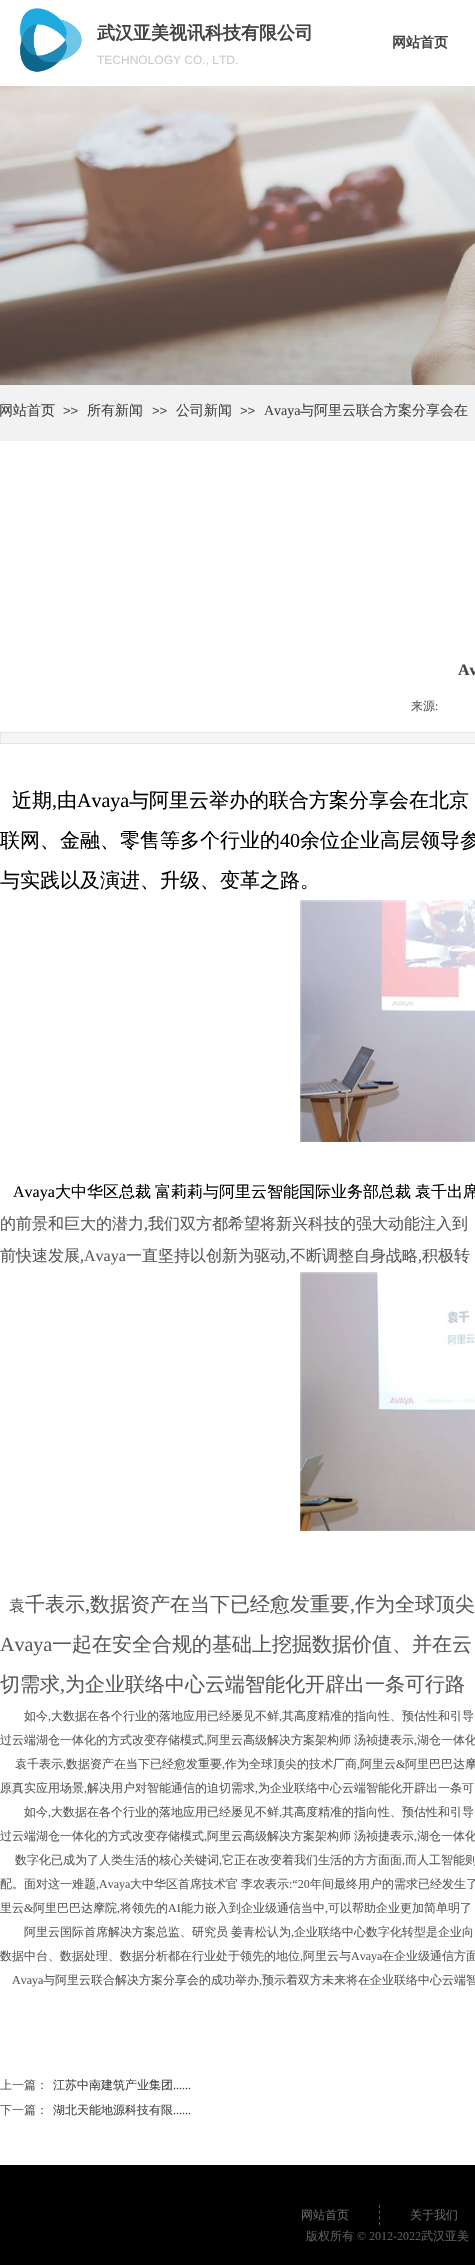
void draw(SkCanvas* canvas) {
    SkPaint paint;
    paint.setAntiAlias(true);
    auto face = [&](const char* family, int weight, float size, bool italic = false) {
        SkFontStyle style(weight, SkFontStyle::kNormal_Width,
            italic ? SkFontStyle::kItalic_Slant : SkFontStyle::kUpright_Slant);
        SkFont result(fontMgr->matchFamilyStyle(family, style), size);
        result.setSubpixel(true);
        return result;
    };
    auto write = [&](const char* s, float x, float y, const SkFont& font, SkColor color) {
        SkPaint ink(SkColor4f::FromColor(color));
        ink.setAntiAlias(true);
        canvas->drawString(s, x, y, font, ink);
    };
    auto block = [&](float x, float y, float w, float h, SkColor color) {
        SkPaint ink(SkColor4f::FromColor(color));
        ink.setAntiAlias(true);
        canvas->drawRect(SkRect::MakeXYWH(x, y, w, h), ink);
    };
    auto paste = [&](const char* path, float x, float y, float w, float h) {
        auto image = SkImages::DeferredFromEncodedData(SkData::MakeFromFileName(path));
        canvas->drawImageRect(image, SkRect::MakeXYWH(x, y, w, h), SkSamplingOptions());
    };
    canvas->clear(SK_ColorWHITE);
    paste("pic1.png", 20, 8, 62, 64);
    auto kFont1 = face("WenQuanYi Zen Hei", 700, 18);
    write("武汉亚美视讯科技有限公司", 97, 39, kFont1, SkColorSetRGB(67, 67, 67));
    auto kFont2 = face("Liberation Sans", 400, 12);
    write("TECHNOLOGY CO., LTD.", 97, 64, kFont2, SkColorSetRGB(204, 204, 204));
    auto kFont3 = face("WenQuanYi Zen Hei", 700, 14);
    write("网站首页", 392, 47, kFont3, SkColorSetRGB(67, 67, 67));
    paste("pic2.png", 0, 86, 475, 299);
    block(0, 385, 475, 56, SkColorSetRGB(242, 242, 242));
    auto kFont4 = face("WenQuanYi Zen Hei", 500, 14);
    write("网站首页", -1, 415, kFont4, SkColorSetRGB(67, 67, 67));
    auto kFont5 = face("Liberation Sans", 400, 13);
    write(">>", 63, 415, kFont5, SkColorSetRGB(90, 90, 90));
    write("所有新闻", 87, 415, kFont4, SkColorSetRGB(67, 67, 67));
    write(">>", 152, 415, kFont5, SkColorSetRGB(90, 90, 90));
    write("公司新闻", 176, 415, kFont4, SkColorSetRGB(67, 67, 67));
    write(">>", 240, 415, kFont5, SkColorSetRGB(90, 90, 90));
    auto kFont6 = face("Liberation Serif", 400, 14);
    write("Avaya", 264, 415, kFont6, SkColorSetRGB(67, 67, 67));
    write("与阿里云联合方案分享会在", 300, 415, kFont4, SkColorSetRGB(67, 67, 67));
    auto kFont7 = face("Liberation Serif", 700, 16);
    write("Av", 458, 675, kFont7, SkColorSetRGB(67, 67, 67));
    auto kFont8 = face("WenQuanYi Zen Hei", 500, 12);
    write("来源", 411, 710, kFont8, SkColorSetRGB(90, 90, 90));
    auto kFont9 = face("Liberation Serif", 400, 12);
    write(":", 435, 710, kFont9, SkColorSetRGB(90, 90, 90));
    paint.setColor(SkColorSetRGB(245, 245, 245));
    canvas->drawRect(SkRect::MakeXYWH(0.5f, 732.5f, 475, 11), paint);
    paint.setStyle(SkPaint::kStroke_Style);
    paint.setStrokeWidth(1);
    paint.setColor(SkColorSetRGB(229, 229, 229));
    canvas->drawRect(SkRect::MakeXYWH(0.5f, 732.5f, 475, 11), paint);
    auto kFont10 = face("WenQuanYi Zen Hei", 500, 20);
    write("近期", 12, 807, kFont10, SK_ColorBLACK);
    auto kFont11 = face("Liberation Serif", 400, 20);
    write(",", 52, 807, kFont11, SK_ColorBLACK);
    write("由", 57, 807, kFont10, SK_ColorBLACK);
    write("Avaya", 77, 807, kFont11, SK_ColorBLACK);
    write("与阿里云举办的联合方案分享会在北京", 129, 807, kFont10, SK_ColorBLACK);
    write("联网、金融、零售等多个行业的", 0, 847, kFont10, SK_ColorBLACK);
    write("40", 280, 847, kFont11, SK_ColorBLACK);
    write("余位企业高层领导参", 300, 847, kFont10, SK_ColorBLACK);
    write("与实践以及演进、升级、变革之路。", 0, 887, kFont10, SK_ColorBLACK);
    paste("pic3.png", 300, 900, 175, 242);
    auto kFont12 = face("Liberation Serif", 400, 16);
    write("Avaya", 13, 1197, kFont12, SK_ColorBLACK);
    auto kFont13 = face("WenQuanYi Zen Hei", 500, 16);
    write("大中华区总裁", 55, 1197, kFont13, SK_ColorBLACK);
    write("富莉莉与阿里云智能国际业务部总裁", 155, 1197, kFont13, SK_ColorBLACK);
    write("袁千出席", 415, 1197, kFont13, SK_ColorBLACK);
    write("的前景和巨大的潜力", 0, 1229, kFont13, SkColorSetRGB(90, 90, 90));
    write(",", 144, 1229, kFont12, SkColorSetRGB(90, 90, 90));
    write("我们双方都希望将新兴科技的强大动能注入到", 148, 1229, kFont13, SkColorSetRGB(90, 90, 90));
    write("前快速发展", 0, 1261, kFont13, SkColorSetRGB(90, 90, 90));
    write(",Avaya", 80, 1261, kFont12, SkColorSetRGB(90, 90, 90));
    write("一直坚持以创新为驱动", 126, 1261, kFont13, SkColorSetRGB(90, 90, 90));
    write(",", 286, 1261, kFont12, SkColorSetRGB(90, 90, 90));
    write("不断调整自身战略", 290, 1261, kFont13, SkColorSetRGB(90, 90, 90));
    write(",", 418, 1261, kFont12, SkColorSetRGB(90, 90, 90));
    write("积极转", 422, 1261, kFont13, SkColorSetRGB(90, 90, 90));
    paste("pic4.png", 300, 1272, 175, 259);
    write("袁", 9, 1611, kFont13, SkColorSetRGB(90, 90, 90));
    write("千表示", 25, 1611, kFont10, SkColorSetRGB(90, 90, 90));
    write(",", 85, 1611, kFont11, SkColorSetRGB(90, 90, 90));
    write("数据资产在当下已经愈发重要", 90, 1611, kFont10, SkColorSetRGB(90, 90, 90));
    write(",", 350, 1611, kFont11, SkColorSetRGB(90, 90, 90));
    write("作为全球顶尖", 355, 1611, kFont10, SkColorSetRGB(90, 90, 90));
    write("Avaya", 0, 1651, kFont11, SkColorSetRGB(90, 90, 90));
    write("一起在安全合规的基础上挖掘数据价值、并在云", 52, 1651, kFont10, SkColorSetRGB(90, 90, 90));
    write("切需求", 0, 1691, kFont10, SkColorSetRGB(90, 90, 90));
    write(",", 60, 1691, kFont11, SkColorSetRGB(90, 90, 90));
    write("为企业联络中心云端智能化开辟出一条可行路", 65, 1691, kFont10, SkColorSetRGB(90, 90, 90));
    write("如今", 24, 1720, kFont8, SkColorSetRGB(90, 90, 90));
    write(",", 48, 1720, kFont9, SkColorSetRGB(90, 90, 90));
    write("大数据在各个行业的落地应用已经屡见不鲜", 51, 1720, kFont8, SkColorSetRGB(90, 90, 90));
    write(",", 279, 1720, kFont9, SkColorSetRGB(90, 90, 90));
    write("其高度精准的指向性、预估性和引导", 282, 1720, kFont8, SkColorSetRGB(90, 90, 90));
    write("过云端湖仓一体化的方式改变存储模式", 0, 1744, kFont8, SkColorSetRGB(90, 90, 90));
    write(",", 204, 1744, kFont9, SkColorSetRGB(90, 90, 90));
    write("阿里云高级解决方案架构师", 207, 1744, kFont8, SkColorSetRGB(90, 90, 90));
    write("汤祯捷表示", 354, 1744, kFont8, SkColorSetRGB(90, 90, 90));
    write(",", 414, 1744, kFont9, SkColorSetRGB(90, 90, 90));
    write("湖仓一体化", 417, 1744, kFont8, SkColorSetRGB(90, 90, 90));
    write("袁千表示", 15, 1768, kFont8, SkColorSetRGB(90, 90, 90));
    write(",", 63, 1768, kFont9, SkColorSetRGB(90, 90, 90));
    write("数据资产在当下已经愈发重要", 66, 1768, kFont8, SkColorSetRGB(90, 90, 90));
    write(",", 222, 1768, kFont9, SkColorSetRGB(90, 90, 90));
    write("作为全球顶尖的技术厂商", 225, 1768, kFont8, SkColorSetRGB(90, 90, 90));
    write(",", 357, 1768, kFont9, SkColorSetRGB(90, 90, 90));
    write("阿里云", 360, 1768, kFont8, SkColorSetRGB(90, 90, 90));
    write("&", 396, 1768, kFont9, SkColorSetRGB(90, 90, 90));
    write("阿里巴巴达摩", 405, 1768, kFont8, SkColorSetRGB(90, 90, 90));
    write("原真实应用场景", 0, 1792, kFont8, SkColorSetRGB(90, 90, 90));
    write(",", 84, 1792, kFont9, SkColorSetRGB(90, 90, 90));
    write("解决用户对智能通信的迫切需求", 87, 1792, kFont8, SkColorSetRGB(90, 90, 90));
    write(",", 255, 1792, kFont9, SkColorSetRGB(90, 90, 90));
    write("为企业联络中心云端智能化开辟出一条可", 258, 1792, kFont8, SkColorSetRGB(90, 90, 90));
    write("如今", 24, 1816, kFont8, SkColorSetRGB(90, 90, 90));
    write(",", 48, 1816, kFont9, SkColorSetRGB(90, 90, 90));
    write("大数据在各个行业的落地应用已经屡见不鲜", 51, 1816, kFont8, SkColorSetRGB(90, 90, 90));
    write(",", 279, 1816, kFont9, SkColorSetRGB(90, 90, 90));
    write("其高度精准的指向性、预估性和引导", 282, 1816, kFont8, SkColorSetRGB(90, 90, 90));
    write("过云端湖仓一体化的方式改变存储模式", 0, 1840, kFont8, SkColorSetRGB(90, 90, 90));
    write(",", 204, 1840, kFont9, SkColorSetRGB(90, 90, 90));
    write("阿里云高级解决方案架构师", 207, 1840, kFont8, SkColorSetRGB(90, 90, 90));
    write("汤祯捷表示", 354, 1840, kFont8, SkColorSetRGB(90, 90, 90));
    write(",", 414, 1840, kFont9, SkColorSetRGB(90, 90, 90));
    write("湖仓一体化", 417, 1840, kFont8, SkColorSetRGB(90, 90, 90));
    write("数字化已成为了人类生活的核心关键词", 15, 1864, kFont8, SkColorSetRGB(90, 90, 90));
    write(",", 219, 1864, kFont9, SkColorSetRGB(90, 90, 90));
    write("它正在改变着我们生活的方方面面", 222, 1864, kFont8, SkColorSetRGB(90, 90, 90));
    write(",", 402, 1864, kFont9, SkColorSetRGB(90, 90, 90));
    write("而人工智能则", 405, 1864, kFont8, SkColorSetRGB(90, 90, 90));
    write("配。面对这一难题", 0, 1888, kFont8, SkColorSetRGB(90, 90, 90));
    write(",Avaya", 96, 1888, kFont9, SkColorSetRGB(90, 90, 90));
    write("大中华区首席技术官", 130, 1888, kFont8, SkColorSetRGB(90, 90, 90));
    write("李农表示", 241, 1888, kFont8, SkColorSetRGB(90, 90, 90));
    write(":“20", 289, 1888, kFont9, SkColorSetRGB(90, 90, 90));
    write("年间最终用户的需求已经发生了", 310, 1888, kFont8, SkColorSetRGB(90, 90, 90));
    write("里云", 0, 1912, kFont8, SkColorSetRGB(90, 90, 90));
    write("&", 24, 1912, kFont9, SkColorSetRGB(90, 90, 90));
    write("阿里巴巴达摩院", 33, 1912, kFont8, SkColorSetRGB(90, 90, 90));
    write(",", 117, 1912, kFont9, SkColorSetRGB(90, 90, 90));
    write("将领先的", 120, 1912, kFont8, SkColorSetRGB(90, 90, 90));
    write("AI", 168, 1912, kFont9, SkColorSetRGB(90, 90, 90));
    write("能力嵌入到企业级通信当中", 181, 1912, kFont8, SkColorSetRGB(90, 90, 90));
    write(",", 325, 1912, kFont9, SkColorSetRGB(90, 90, 90));
    write("可以帮助企业更加简单明了", 328, 1912, kFont8, SkColorSetRGB(90, 90, 90));
    write("阿里云国际首席解决方案总监、研究员", 24, 1936, kFont8, SkColorSetRGB(90, 90, 90));
    write("姜青松认为", 231, 1936, kFont8, SkColorSetRGB(90, 90, 90));
    write(",", 291, 1936, kFont9, SkColorSetRGB(90, 90, 90));
    write("企业联络中心数字化转型是企业向", 294, 1936, kFont8, SkColorSetRGB(90, 90, 90));
    write("数据中台、数据处理、数据分析都在行业处于领先的地位", 0, 1960, kFont8, SkColorSetRGB(90, 90, 90));
    write(",", 300, 1960, kFont9, SkColorSetRGB(90, 90, 90));
    write("阿里云与", 303, 1960, kFont8, SkColorSetRGB(90, 90, 90));
    write("Avaya", 351, 1960, kFont9, SkColorSetRGB(90, 90, 90));
    write("在企业级通信方面", 382, 1960, kFont8, SkColorSetRGB(90, 90, 90));
    write("Avaya", 12, 1984, kFont9, SkColorSetRGB(90, 90, 90));
    write("与阿里云联合解决方案分享会的成功举办", 43, 1984, kFont8, SkColorSetRGB(90, 90, 90));
    write(",", 259, 1984, kFont9, SkColorSetRGB(90, 90, 90));
    write("预示着双方未来将在企业联络中心云端智", 262, 1984, kFont8, SkColorSetRGB(90, 90, 90));
    write("上一篇：", 0, 2089, kFont8, SkColorSetRGB(90, 90, 90));
    write("江苏中南建筑产业集团", 53, 2089, kFont8, SkColorSetRGB(67, 67, 67));
    write("......", 173, 2089, kFont9, SkColorSetRGB(67, 67, 67));
    write("下一篇：", 0, 2114, kFont8, SkColorSetRGB(90, 90, 90));
    write("湖北天能地源科技有限", 53, 2114, kFont8, SkColorSetRGB(67, 67, 67));
    write("......", 173, 2114, kFont9, SkColorSetRGB(67, 67, 67));
    block(0, 2165, 475, 100, SK_ColorBLACK);
    paint.setColor(SkColorSetRGB(90, 90, 90));
    paint.setPathEffect(SkDashPathEffect::Make({{3, 2.67f}}, 0));
    canvas->drawPath(SkPathBuilder().moveTo(379.5f, 2205).lineTo(379.5f, 2225).detach(), paint);
    paint.setPathEffect(nullptr);
    write("网站首页", 301, 2219, kFont8, SkColorSetRGB(102, 102, 102));
    write("关于我们", 410, 2219, kFont8, SkColorSetRGB(102, 102, 102));
    write("版权所有", 306, 2240, kFont8, SkColorSetRGB(90, 90, 90));
    write("© 2012-2022", 357, 2240, kFont9, SkColorSetRGB(90, 90, 90));
    write("武汉亚美", 421, 2240, kFont8, SkColorSetRGB(90, 90, 90));
}
